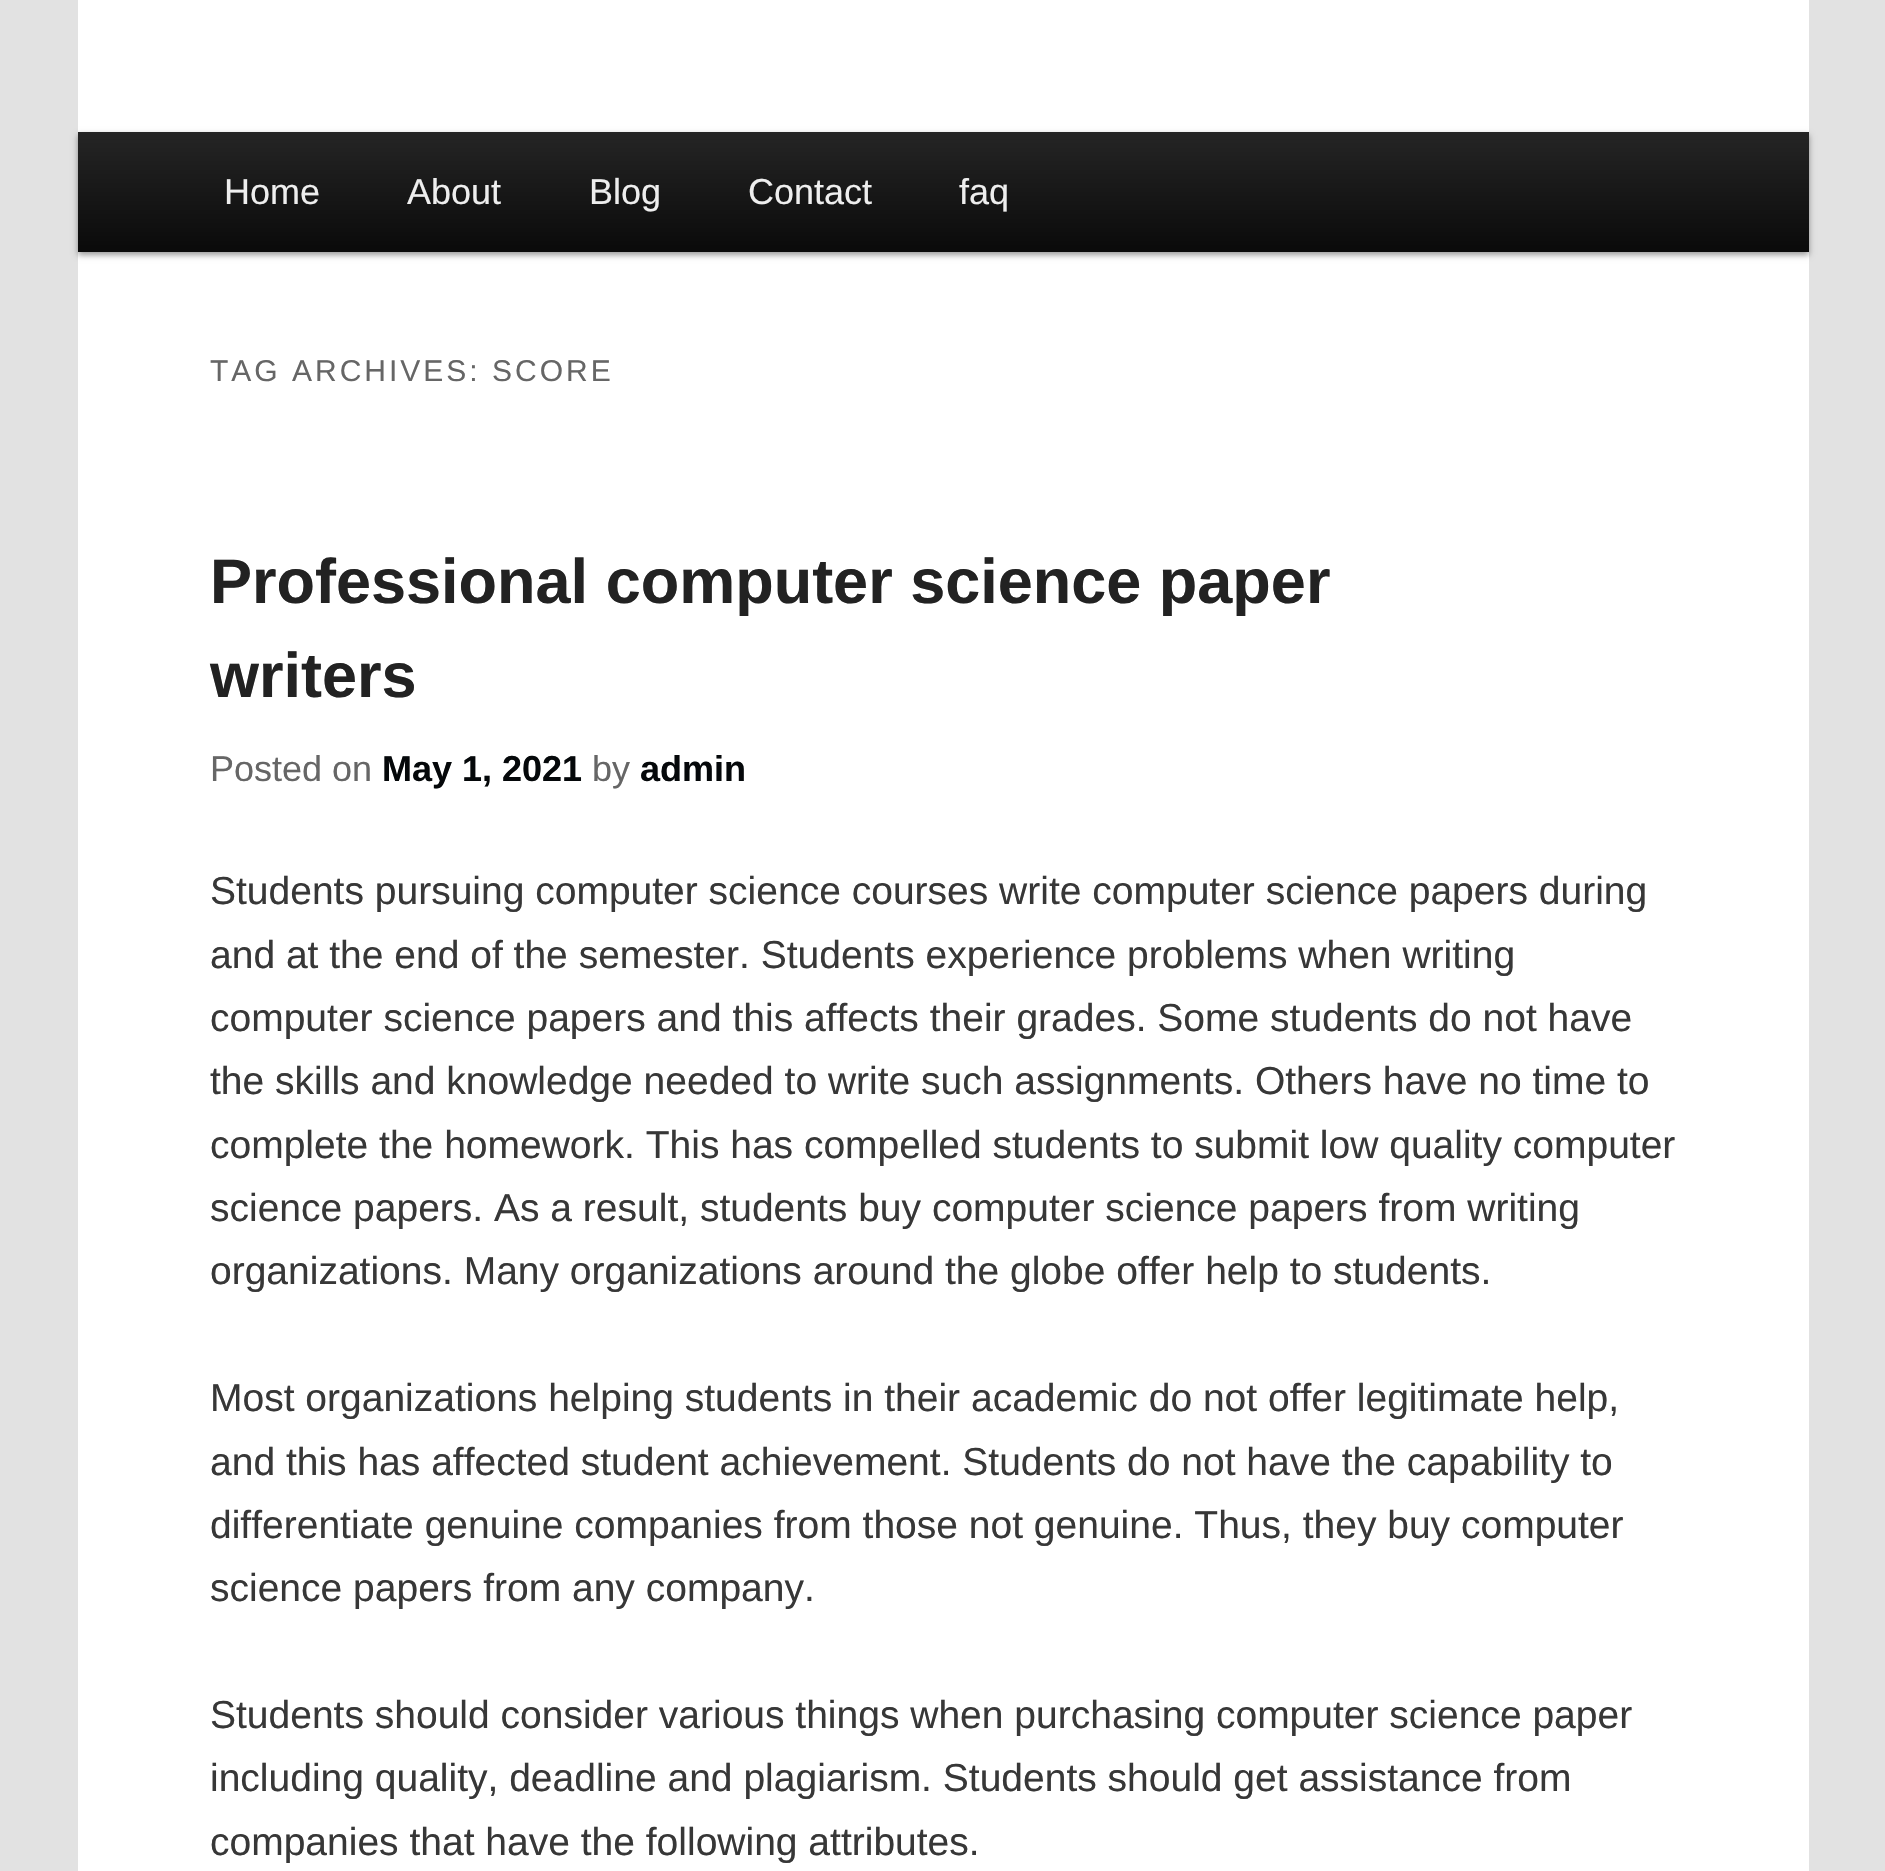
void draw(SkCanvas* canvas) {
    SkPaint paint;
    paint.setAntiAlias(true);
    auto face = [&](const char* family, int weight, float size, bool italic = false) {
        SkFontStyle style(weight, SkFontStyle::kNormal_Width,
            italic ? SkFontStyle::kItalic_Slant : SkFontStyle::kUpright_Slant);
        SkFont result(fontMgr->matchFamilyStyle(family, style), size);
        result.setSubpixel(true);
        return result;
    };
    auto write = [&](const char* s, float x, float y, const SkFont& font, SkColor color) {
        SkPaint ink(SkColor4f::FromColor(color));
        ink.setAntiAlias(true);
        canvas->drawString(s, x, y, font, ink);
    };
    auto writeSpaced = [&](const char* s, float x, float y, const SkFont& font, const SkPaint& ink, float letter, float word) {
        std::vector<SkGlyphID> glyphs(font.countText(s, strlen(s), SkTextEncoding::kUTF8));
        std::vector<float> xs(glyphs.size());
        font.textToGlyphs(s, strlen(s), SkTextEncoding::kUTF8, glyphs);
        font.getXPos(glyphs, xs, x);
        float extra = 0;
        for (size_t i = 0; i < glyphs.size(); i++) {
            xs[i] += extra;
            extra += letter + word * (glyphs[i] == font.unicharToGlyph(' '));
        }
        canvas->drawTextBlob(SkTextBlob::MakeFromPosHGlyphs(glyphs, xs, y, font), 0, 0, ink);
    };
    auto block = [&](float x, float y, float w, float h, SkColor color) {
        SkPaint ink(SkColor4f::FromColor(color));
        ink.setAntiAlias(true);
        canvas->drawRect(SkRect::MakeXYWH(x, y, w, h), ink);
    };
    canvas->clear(SkColorSetRGB(226, 226, 226));
    block(78, 0, 1731, 1871, SK_ColorWHITE);
    paint.setColor(SkColorSetARGB(102, 0, 0, 0));
    paint.setMaskFilter(SkMaskFilter::MakeBlur(kNormal_SkBlurStyle, 3));
    canvas->drawRect(SkRect::MakeXYWH(78, 135, 1731, 120), paint);
    paint.setMaskFilter(nullptr);
    {
        const SkColor colors[] = {SkColorSetRGB(37, 37, 37), SkColorSetRGB(10, 10, 10)};
        const float stops[] = {0, 1};
        const SkPoint ends[] = {{944, 132}, {944, 252}};
        paint.setShader(SkGradientShader::MakeLinear(ends, colors, stops, 2, SkTileMode::kClamp));
        paint.setAlpha(255);
    }
    canvas->drawRect(SkRect::MakeXYWH(78, 132, 1731, 120), paint);
    auto kFont1 = face("Liberation Sans", 400, 36);
    write("Home", 224, 204, kFont1, SkColorSetRGB(238, 238, 238));
    write("About", 407, 204, kFont1, SkColorSetRGB(238, 238, 238));
    write("Blog", 589, 204, kFont1, SkColorSetRGB(238, 238, 238));
    write("Contact", 748, 204, kFont1, SkColorSetRGB(238, 238, 238));
    write("faq", 959, 204, kFont1, SkColorSetRGB(238, 238, 238));
    auto kFont2 = face("Liberation Sans", 400, 30);
    paint.setShader(nullptr);
    paint.setColor(SkColorSetRGB(102, 102, 102));
    writeSpaced("TAG ARCHIVES: SCORE", 210, 381, kFont2, paint, 3, 0);
    auto kFont3 = face("Liberation Sans", 700, 63);
    write("Professional computer science paper", 210, 603, kFont3, SkColorSetRGB(34, 34, 34));
    write("writers", 210, 697, kFont3, SkColorSetRGB(34, 34, 34));
    write("Posted on", 210, 781, kFont1, SkColorSetRGB(102, 102, 102));
    auto kFont4 = face("Liberation Sans", 700, 36);
    write("May 1, 2021", 382, 781, kFont4, SkColorSetRGB(5, 8, 10));
    write("by", 592, 781, kFont1, SkColorSetRGB(102, 102, 102));
    write("admin", 640, 781, kFont4, SkColorSetRGB(5, 8, 10));
    auto kFont5 = face("Liberation Sans", 400, 39);
    write("Students pursuing computer science courses write computer science papers during", 210, 904, kFont5, SkColorSetRGB(55, 55, 55));
    write("and at the end of the semester. Students experience problems when writing", 210, 968, kFont5, SkColorSetRGB(55, 55, 55));
    write("computer science papers and this affects their grades. Some students do not have", 210, 1031, kFont5, SkColorSetRGB(55, 55, 55));
    write("the skills and knowledge needed to write such assignments. Others have no time to", 210, 1094, kFont5, SkColorSetRGB(55, 55, 55));
    write("complete the homework. This has compelled students to submit low quality computer", 210, 1158, kFont5, SkColorSetRGB(55, 55, 55));
    write("science papers. As a result, students buy computer science papers from writing", 210, 1221, kFont5, SkColorSetRGB(55, 55, 55));
    write("organizations. Many organizations around the globe offer help to students.", 210, 1284, kFont5, SkColorSetRGB(55, 55, 55));
    write("Most organizations helping students in their academic do not offer legitimate help,", 210, 1411, kFont5, SkColorSetRGB(55, 55, 55));
    write("and this has affected student achievement. Students do not have the capability to", 210, 1475, kFont5, SkColorSetRGB(55, 55, 55));
    write("differentiate genuine companies from those not genuine. Thus, they buy computer", 210, 1538, kFont5, SkColorSetRGB(55, 55, 55));
    write("science papers from any company.", 210, 1601, kFont5, SkColorSetRGB(55, 55, 55));
    write("Students should consider various things when purchasing computer science paper", 210, 1728, kFont5, SkColorSetRGB(55, 55, 55));
    write("including quality, deadline and plagiarism. Students should get assistance from", 210, 1791, kFont5, SkColorSetRGB(55, 55, 55));
    write("companies that have the following attributes.", 210, 1855, kFont5, SkColorSetRGB(55, 55, 55));
}
